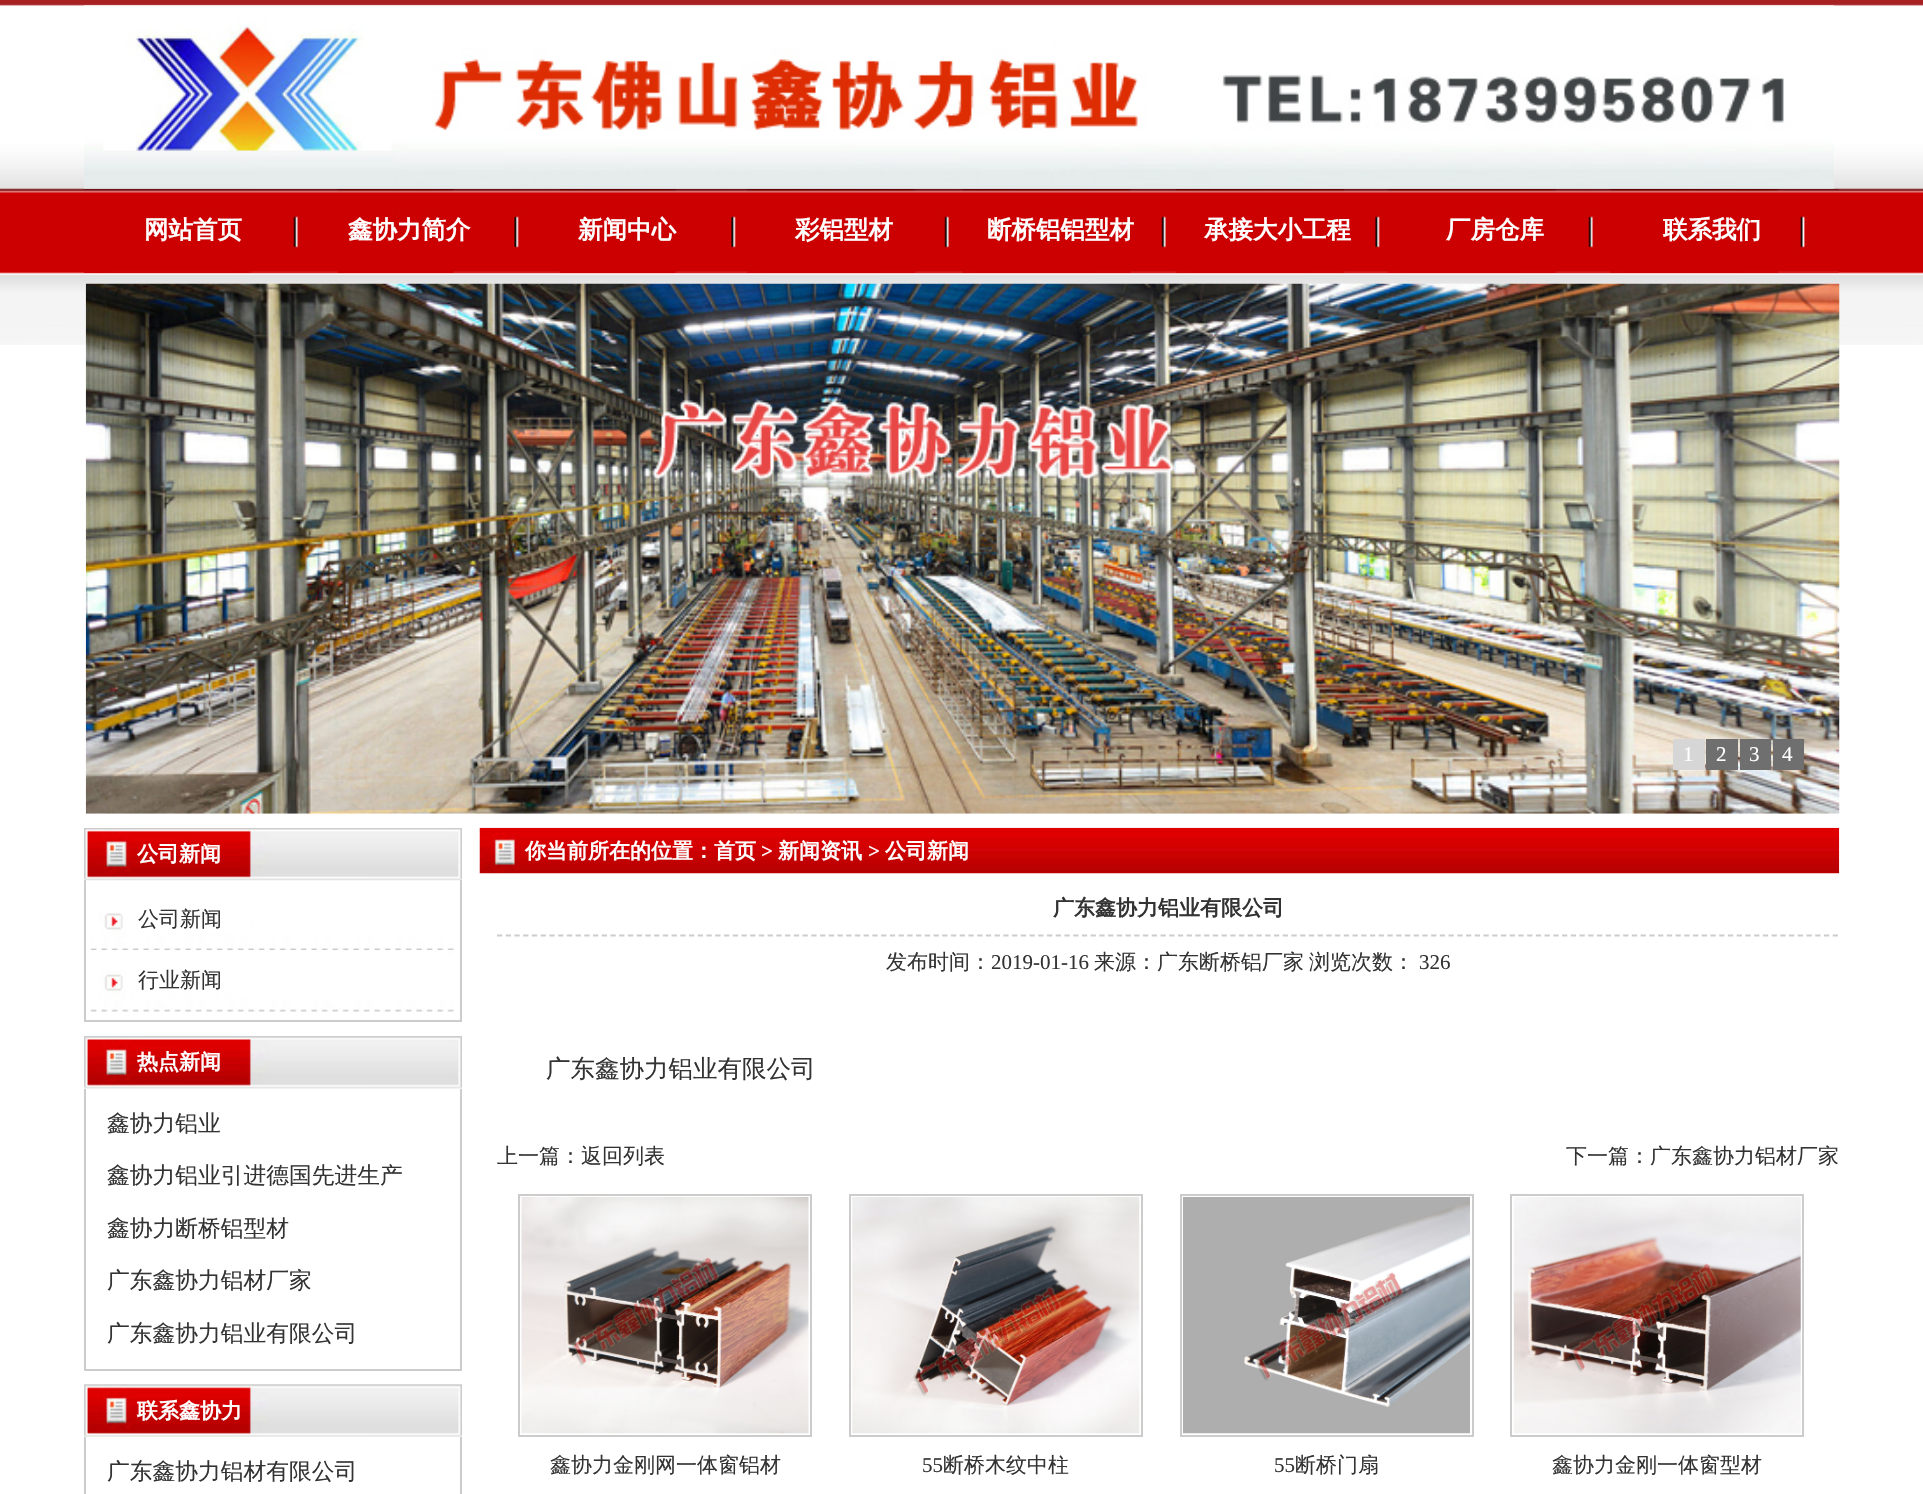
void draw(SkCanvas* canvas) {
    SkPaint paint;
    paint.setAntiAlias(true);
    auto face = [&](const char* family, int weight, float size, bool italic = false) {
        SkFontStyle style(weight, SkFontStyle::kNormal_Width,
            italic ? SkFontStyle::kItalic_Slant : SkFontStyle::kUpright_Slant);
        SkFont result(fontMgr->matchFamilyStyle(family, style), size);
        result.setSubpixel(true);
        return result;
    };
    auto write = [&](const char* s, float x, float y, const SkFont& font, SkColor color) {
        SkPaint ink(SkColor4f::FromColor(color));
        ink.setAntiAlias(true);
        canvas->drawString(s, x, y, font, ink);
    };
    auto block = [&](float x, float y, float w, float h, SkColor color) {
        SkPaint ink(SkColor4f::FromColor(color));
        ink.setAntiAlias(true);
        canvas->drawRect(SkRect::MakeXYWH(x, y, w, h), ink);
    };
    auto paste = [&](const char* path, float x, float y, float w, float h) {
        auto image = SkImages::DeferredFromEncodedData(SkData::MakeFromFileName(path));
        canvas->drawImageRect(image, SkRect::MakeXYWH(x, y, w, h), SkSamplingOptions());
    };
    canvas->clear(SK_ColorWHITE);
    paste("pic1.png", 0, 0, 1923, 345);
    paste("pic2.png", 84, 5, 1750, 184);
    paste("pic3.png", 84, 189, 1755, 84);
    auto kFont1 = face("WenQuanYi Zen Hei", 700, 24.5f);
    write("网站首页", 144, 238, kFont1, SK_ColorWHITE);
    write("鑫协力简介", 348, 238, kFont1, SK_ColorWHITE);
    write("新闻中心", 578, 238, kFont1, SK_ColorWHITE);
    write("彩铝型材", 795, 238, kFont1, SK_ColorWHITE);
    write("断桥铝铝型材", 987, 238, kFont1, SK_ColorWHITE);
    write("承接大小工程", 1204, 238, kFont1, SK_ColorWHITE);
    write("厂房仓库", 1446, 238, kFont1, SK_ColorWHITE);
    write("联系我们", 1663, 238, kFont1, SK_ColorWHITE);
    paste("pic4.png", 85, 283, 1755, 531);
    block(1673, 739, 32, 31, SkColorSetRGB(214, 214, 214));
    auto kFont2 = face("Liberation Serif", 400, 21);
    write("1", 1683, 761, kFont2, SK_ColorWHITE);
    block(1706, 739, 32, 31, SkColorSetRGB(111, 111, 111));
    write("2", 1716, 761, kFont2, SK_ColorWHITE);
    block(1740, 739, 31, 31, SkColorSetRGB(111, 111, 111));
    write("3", 1749, 761, kFont2, SK_ColorWHITE);
    block(1773, 739, 31, 31, SkColorSetRGB(111, 111, 111));
    write("4", 1782, 761, kFont2, SK_ColorWHITE);
    paste("pic5.png", 84, 828, 378, 53);
    auto kFont3 = face("WenQuanYi Zen Hei", 700, 21);
    write("公司新闻", 137, 861, kFont3, SK_ColorWHITE);
    block(460, 880, 2, 142, SkColorSetRGB(204, 204, 204));
    block(84, 1020, 378, 2, SkColorSetRGB(204, 204, 204));
    block(84, 880, 2, 142, SkColorSetRGB(204, 204, 204));
    paste("pic6.png", 90, 913, 364, 38);
    auto kFont4 = face("WenQuanYi Zen Hei", 500, 21);
    write("公司新闻", 138, 926, kFont4, SkColorSetRGB(51, 51, 51));
    paste("pic7.png", 90, 950, 364, 62);
    write("行业新闻", 138, 987, kFont4, SkColorSetRGB(51, 51, 51));
    paste("pic8.png", 84, 1036, 378, 53);
    write("热点新闻", 137, 1069, kFont3, SK_ColorWHITE);
    block(460, 1089, 2, 281, SkColorSetRGB(204, 204, 204));
    block(84, 1369, 378, 2, SkColorSetRGB(204, 204, 204));
    block(84, 1089, 2, 281, SkColorSetRGB(204, 204, 204));
    auto kFont5 = face("WenQuanYi Zen Hei", 500, 22.75f);
    write("鑫协力铝业", 107, 1131, kFont5, SkColorSetRGB(51, 51, 51));
    write("鑫协力铝业引进德国先进生产", 107, 1183, kFont5, SkColorSetRGB(51, 51, 51));
    write("鑫协力断桥铝型材", 107, 1236, kFont5, SkColorSetRGB(51, 51, 51));
    write("广东鑫协力铝材厂家", 107, 1288, kFont5, SkColorSetRGB(51, 51, 51));
    write("广东鑫协力铝业有限公司", 107, 1341, kFont5, SkColorSetRGB(51, 51, 51));
    paste("pic9.png", 84, 1384, 378, 53);
    write("联系鑫协力", 137, 1418, kFont3, SK_ColorWHITE);
    block(460, 1437, 2, 57, SkColorSetRGB(204, 204, 204));
    block(84, 1437, 2, 57, SkColorSetRGB(204, 204, 204));
    write("广东鑫协力铝材有限公司", 107, 1479, kFont5, SkColorSetRGB(51, 51, 51));
    paste("pic10.png", 479, 827, 1361, 47);
    write("你当前所在的位置：首页", 525, 858, kFont3, SK_ColorWHITE);
    auto kFont6 = face("Liberation Serif", 700, 21);
    write(">", 761, 858, kFont6, SK_ColorWHITE);
    write("新闻资讯", 778, 858, kFont3, SK_ColorWHITE);
    write(">", 868, 858, kFont6, SK_ColorWHITE);
    write("公司新闻", 885, 858, kFont3, SK_ColorWHITE);
    paint.setStyle(SkPaint::kStroke_Style);
    paint.setStrokeWidth(1.8f);
    paint.setColor(SkColorSetRGB(204, 204, 204));
    paint.setPathEffect(SkDashPathEffect::Make({{5.25f, 3.48f}}, 0));
    canvas->drawPath(SkPathBuilder().moveTo(497, 935.5f).lineTo(1839, 935.5f).detach(), paint);
    paint.setPathEffect(nullptr);
    write("广东鑫协力铝业有限公司", 1053, 915, kFont3, SkColorSetRGB(51, 51, 51));
    write("发布时间：", 886, 969, kFont4, SkColorSetRGB(51, 51, 51));
    write("2019-01-16", 991, 969, kFont2, SkColorSetRGB(51, 51, 51));
    write("来源：广东断桥铝厂家", 1094, 969, kFont4, SkColorSetRGB(51, 51, 51));
    write("浏览次数：", 1309, 969, kFont4, SkColorSetRGB(51, 51, 51));
    write("326", 1419, 969, kFont2, SkColorSetRGB(51, 51, 51));
    auto kFont7 = face("WenQuanYi Zen Hei", 500, 24.5f);
    write("广东鑫协力铝业有限公司", 546, 1077, kFont7, SkColorSetRGB(51, 51, 51));
    write("上一篇：返回列表", 497, 1163, kFont4, SkColorSetRGB(51, 51, 51));
    write("下一篇：广东鑫协力铝材厂家", 1566, 1163, kFont4, SkColorSetRGB(51, 51, 51));
    paint.setStrokeWidth(2);
    canvas->drawRect(SkRect::MakeXYWH(519, 1195, 292, 241), paint);
    paste("pic11.png", 521, 1197, 288, 237);
    write("鑫协力金刚网一体窗铝材", 550, 1472, kFont4, SkColorSetRGB(51, 51, 51));
    canvas->drawRect(SkRect::MakeXYWH(850, 1195, 292, 241), paint);
    paste("pic12.png", 852, 1197, 288, 237);
    write("55", 922, 1472, kFont2, SkColorSetRGB(51, 51, 51));
    write("断桥木纹中柱", 943, 1472, kFont4, SkColorSetRGB(51, 51, 51));
    canvas->drawRect(SkRect::MakeXYWH(1181, 1195, 292, 241), paint);
    paste("pic13.png", 1183, 1197, 287, 237);
    write("55", 1274, 1472, kFont2, SkColorSetRGB(51, 51, 51));
    write("断桥门扇", 1295, 1472, kFont4, SkColorSetRGB(51, 51, 51));
    canvas->drawRect(SkRect::MakeXYWH(1511, 1195, 292, 241), paint);
    paste("pic14.png", 1513, 1197, 288, 237);
    write("鑫协力金刚一体窗型材", 1552, 1472, kFont4, SkColorSetRGB(51, 51, 51));
}
